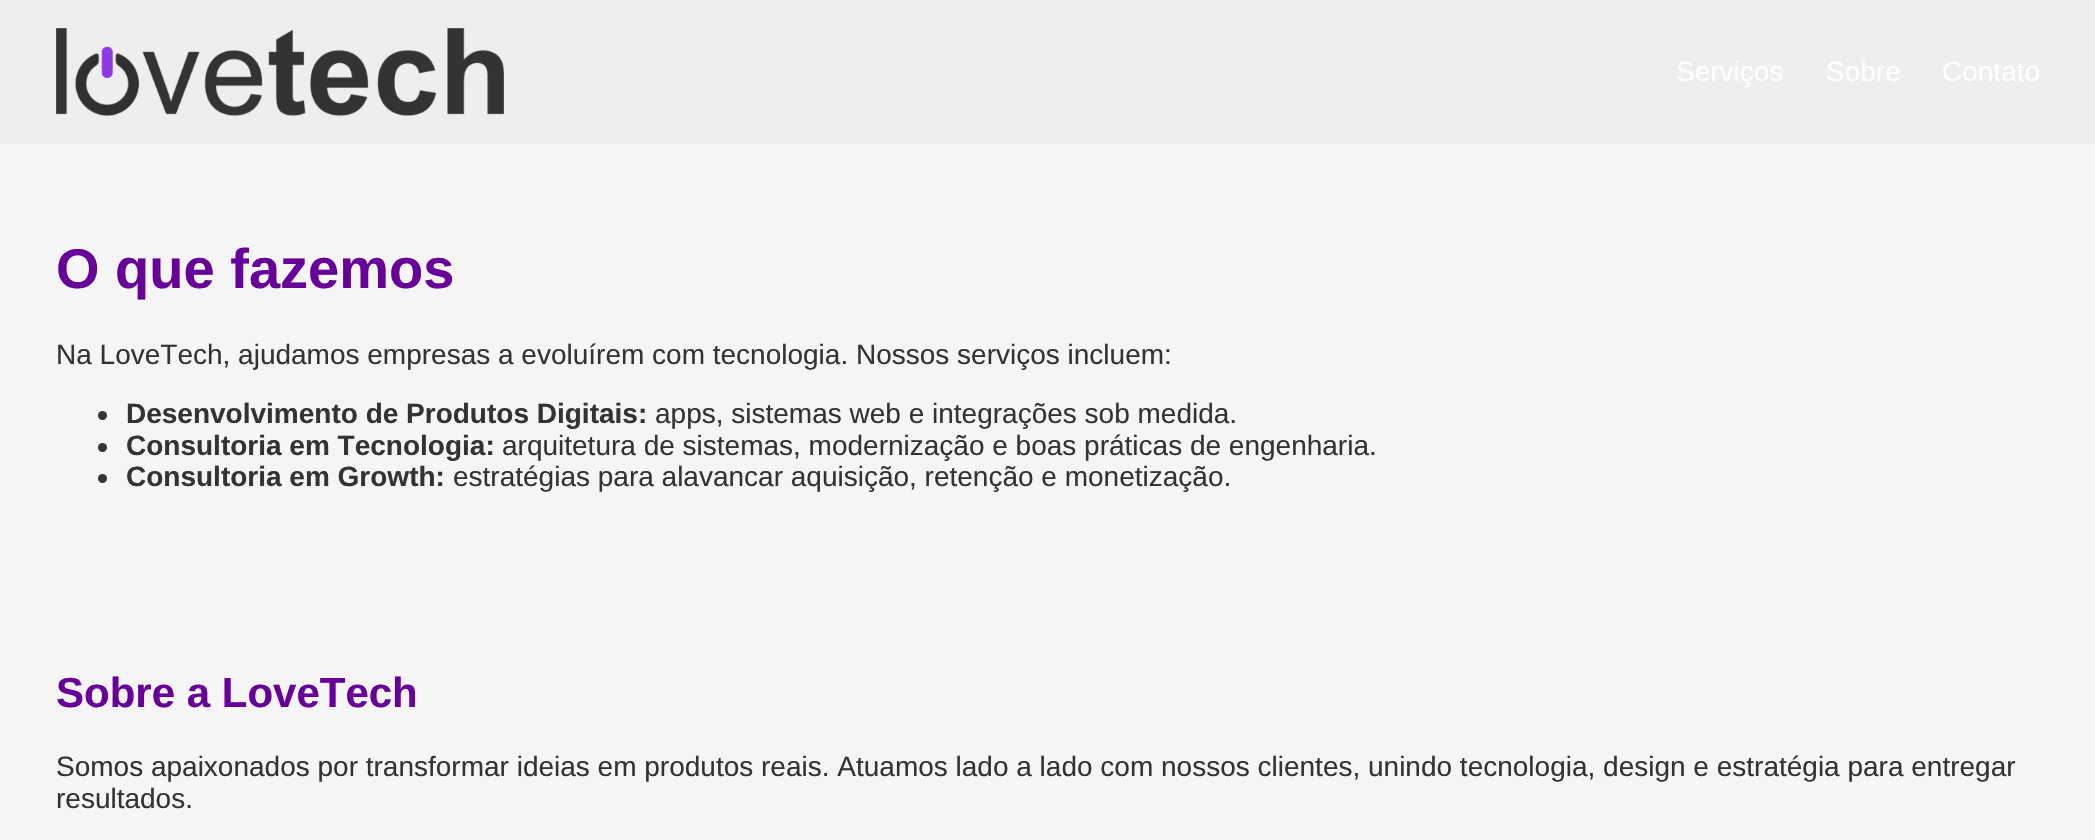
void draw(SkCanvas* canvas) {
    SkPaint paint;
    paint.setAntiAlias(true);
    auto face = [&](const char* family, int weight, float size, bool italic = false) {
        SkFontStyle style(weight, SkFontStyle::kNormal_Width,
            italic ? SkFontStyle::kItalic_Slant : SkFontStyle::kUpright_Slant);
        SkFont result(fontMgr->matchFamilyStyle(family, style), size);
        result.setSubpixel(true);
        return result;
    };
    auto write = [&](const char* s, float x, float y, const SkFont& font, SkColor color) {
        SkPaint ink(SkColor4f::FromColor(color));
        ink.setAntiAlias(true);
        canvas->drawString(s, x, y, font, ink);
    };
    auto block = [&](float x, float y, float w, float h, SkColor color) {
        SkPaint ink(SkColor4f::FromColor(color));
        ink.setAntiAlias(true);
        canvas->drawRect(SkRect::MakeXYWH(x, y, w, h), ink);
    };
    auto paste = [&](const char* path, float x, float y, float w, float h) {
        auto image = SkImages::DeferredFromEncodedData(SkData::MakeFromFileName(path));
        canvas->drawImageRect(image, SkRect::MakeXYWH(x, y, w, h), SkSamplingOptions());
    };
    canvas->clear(SkColorSetRGB(245, 245, 245));
    block(0, 0, 2095, 144, SkColorSetRGB(238, 238, 238));
    paste("pic1.png", 56, 28, 448, 88);
    auto kFont1 = face("Liberation Sans", 400, 28);
    write("Serviços", 1676, 81, kFont1, SK_ColorWHITE);
    write("Sobre", 1826, 81, kFont1, SK_ColorWHITE);
    write("Contato", 1942, 81, kFont1, SK_ColorWHITE);
    auto kFont2 = face("Liberation Sans", 700, 56);
    write("O que fazemos", 56, 288, kFont2, SkColorSetRGB(103, 0, 153));
    write("Na LoveTech, ajudamos empresas a evoluírem com tecnologia. Nossos serviços incluem:", 56, 364, kFont1, SkColorSetRGB(51, 51, 51));
    paint.setColor(SkColorSetRGB(51, 51, 51));
    canvas->drawCircle(102.5f, 415.5f, 4.5f, paint);
    auto kFont3 = face("Liberation Sans", 700, 28);
    write("Desenvolvimento de Produtos Digitais:", 126, 423, kFont3, SkColorSetRGB(51, 51, 51));
    write("apps, sistemas web e integrações sob medida.", 655, 423, kFont1, SkColorSetRGB(51, 51, 51));
    canvas->drawCircle(102.5f, 447.5f, 4.5f, paint);
    write("Consultoria em Tecnologia:", 126, 455, kFont3, SkColorSetRGB(51, 51, 51));
    write("arquitetura de sistemas, modernização e boas práticas de engenharia.", 502, 455, kFont1, SkColorSetRGB(51, 51, 51));
    canvas->drawCircle(102.5f, 478.5f, 4.5f, paint);
    write("Consultoria em Growth:", 126, 486, kFont3, SkColorSetRGB(51, 51, 51));
    write("estratégias para alavancar aquisição, retenção e monetização.", 453, 486, kFont1, SkColorSetRGB(51, 51, 51));
    auto kFont4 = face("Liberation Sans", 700, 42);
    write("Sobre a LoveTech", 56, 707, kFont4, SkColorSetRGB(103, 0, 153));
    write("Somos apaixonados por transformar ideias em produtos reais. Atuamos lado a lado com nossos clientes, unindo tecnologia, design e estratégia para entregar", 56, 776, kFont1, SkColorSetRGB(51, 51, 51));
    write("resultados.", 56, 808, kFont1, SkColorSetRGB(51, 51, 51));
}
